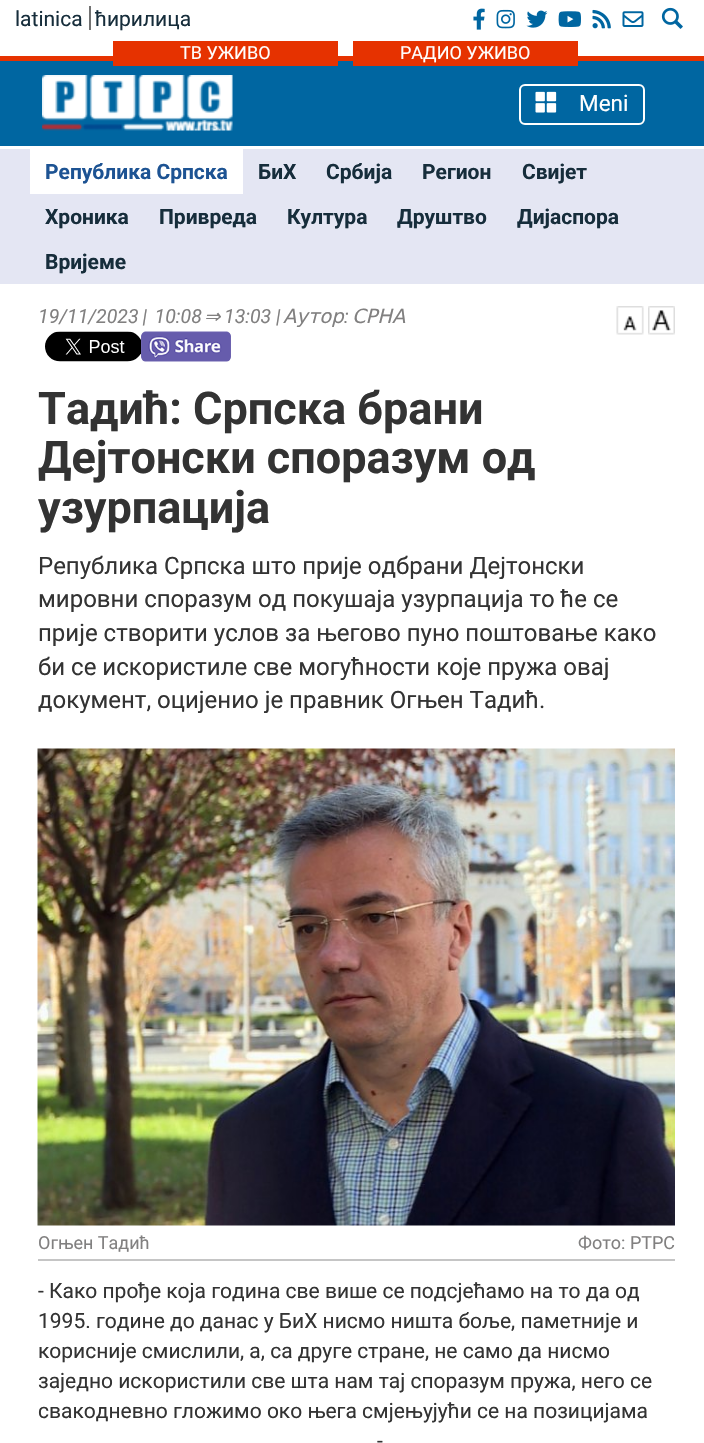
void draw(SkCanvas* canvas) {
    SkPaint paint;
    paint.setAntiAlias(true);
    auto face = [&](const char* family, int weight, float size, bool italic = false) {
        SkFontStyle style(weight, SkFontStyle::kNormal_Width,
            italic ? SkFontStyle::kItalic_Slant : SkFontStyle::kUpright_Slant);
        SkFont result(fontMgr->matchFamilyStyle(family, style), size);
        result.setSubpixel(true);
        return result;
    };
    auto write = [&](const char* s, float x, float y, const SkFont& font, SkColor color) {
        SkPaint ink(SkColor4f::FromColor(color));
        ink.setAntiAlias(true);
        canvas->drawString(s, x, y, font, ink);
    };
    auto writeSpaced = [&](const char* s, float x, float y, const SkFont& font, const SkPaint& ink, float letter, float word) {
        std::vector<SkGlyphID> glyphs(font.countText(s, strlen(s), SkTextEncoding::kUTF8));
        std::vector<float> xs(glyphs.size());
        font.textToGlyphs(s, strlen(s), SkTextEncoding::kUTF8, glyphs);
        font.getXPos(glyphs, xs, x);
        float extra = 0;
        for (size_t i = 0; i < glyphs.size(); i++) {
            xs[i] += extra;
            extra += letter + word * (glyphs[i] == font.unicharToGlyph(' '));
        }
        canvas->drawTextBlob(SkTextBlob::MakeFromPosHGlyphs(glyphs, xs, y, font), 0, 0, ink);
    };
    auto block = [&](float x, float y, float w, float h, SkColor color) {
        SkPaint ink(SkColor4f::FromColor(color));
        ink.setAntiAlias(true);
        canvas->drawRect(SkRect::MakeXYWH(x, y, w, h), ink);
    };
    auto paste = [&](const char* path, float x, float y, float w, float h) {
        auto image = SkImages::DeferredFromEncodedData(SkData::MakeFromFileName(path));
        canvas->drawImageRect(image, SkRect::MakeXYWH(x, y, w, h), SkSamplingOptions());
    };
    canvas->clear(SK_ColorWHITE);
    block(0, 61, 704, 85, SkColorSetRGB(0, 102, 161));
    auto kFont1 = face("Roboto", 400, 21);
    write("latinica", 15, 26, kFont1, SkColorSetRGB(22, 45, 59));
    block(89, 6, 2, 24, SkColorSetRGB(114, 114, 114));
    write("ћирилица", 95, 26, kFont1, SkColorSetRGB(22, 45, 59));
    paste("pic1.png", 473, 8, 12, 22);
    paste("pic2.png", 496, 9, 19, 20);
    paste("pic3.png", 526, 10, 22, 18);
    paste("pic4.png", 558, 11, 23, 16);
    paste("pic5.png", 592, 9, 19, 20);
    paste("pic6.png", 622, 11, 22, 16);
    paste("pic7.png", 661, 7, 22, 22);
    block(0, 56, 704, 5, SkColorSetRGB(230, 50, 0));
    block(113, 41, 225, 25, SkColorSetRGB(230, 50, 0));
    auto kFont2 = face("Roboto", 400, 18);
    write("ТВ УЖИВО", 180, 59, kFont2, SK_ColorWHITE);
    block(353, 41, 225, 25, SkColorSetRGB(230, 50, 0));
    write("РАДИО УЖИВО", 400, 59, kFont2, SK_ColorWHITE);
    paste("pic8.png", 42, 75, 191, 56);
    paint.setStyle(SkPaint::kStroke_Style);
    paint.setStrokeWidth(2);
    paint.setColor(SK_ColorWHITE);
    canvas->drawRoundRect(SkRect::MakeXYWH(520, 85, 124, 39), 5, 5, paint);
    paste("pic9.png", 535, 91, 22, 22);
    auto kFont3 = face("Roboto", 400, 22.5f);
    write("Meni", 579, 111, kFont3, SK_ColorWHITE);
    block(0, 149, 704, 135, SkColorSetRGB(228, 230, 243));
    block(30, 149, 213, 45, SK_ColorWHITE);
    auto kFont4 = face("Roboto", 700, 21);
    write("Република Српска", 45, 179, kFont4, SkColorSetRGB(29, 83, 147));
    write("БиХ", 258, 179, kFont4, SkColorSetRGB(22, 45, 59));
    write("Србија", 326, 179, kFont4, SkColorSetRGB(22, 45, 59));
    write("Регион", 422, 179, kFont4, SkColorSetRGB(22, 45, 59));
    write("Свијет", 522, 179, kFont4, SkColorSetRGB(22, 45, 59));
    write("Хроника", 45, 224, kFont4, SkColorSetRGB(22, 45, 59));
    write("Привреда", 159, 224, kFont4, SkColorSetRGB(22, 45, 59));
    write("Култура", 287, 224, kFont4, SkColorSetRGB(22, 45, 59));
    write("Друштво", 397, 224, kFont4, SkColorSetRGB(22, 45, 59));
    write("Дијаспора", 517, 224, kFont4, SkColorSetRGB(22, 45, 59));
    write("Вријеме", 45, 269, kFont4, SkColorSetRGB(22, 45, 59));
    auto kFont5 = face("Roboto", 400, 19.5f, true);
    paint.setStyle(SkPaint::kFill_Style);
    paint.setColor(SkColorSetRGB(129, 128, 128));
    writeSpaced("19/11/2023 |  10:08", 38, 323, kFont5, paint, 0, -1);
    auto kFont6 = face("DejaVu Sans", 400, 19.5f, true);
    write("⇒", 204, 323, kFont6, SkColorSetRGB(129, 128, 128));
    write("13:03 |", 224, 323, kFont5, SkColorSetRGB(129, 128, 128));
    write("Аутор", 283, 323, kFont6, SkColorSetRGB(129, 128, 128));
    write(":", 344, 323, kFont5, SkColorSetRGB(129, 128, 128));
    write("СРНА", 352, 323, kFont6, SkColorSetRGB(129, 128, 128));
    paste("pic10.png", 616, 306, 28, 29);
    paste("pic11.png", 648, 306, 27, 29);
    paste("pic12.png", 45, 331, 96, 31);
    paste("pic13.png", 141, 331, 90, 31);
    auto kFont7 = face("Roboto", 700, 45);
    write("Тадић: Српска брани", 38, 424, kFont7, SkColorSetRGB(51, 51, 51));
    write("Дејтонски споразум од", 38, 473, kFont7, SkColorSetRGB(51, 51, 51));
    write("узурпација", 38, 523, kFont7, SkColorSetRGB(51, 51, 51));
    auto kFont8 = face("Roboto", 400, 24);
    write("Република Српска што прије одбрани Дејтонски", 38, 574, kFont8, SkColorSetRGB(51, 51, 51));
    write("мировни споразум од покушаја узурпација то ће се", 38, 607, kFont8, SkColorSetRGB(51, 51, 51));
    write("прије створити услов за његово пуно поштовање како", 38, 641, kFont8, SkColorSetRGB(51, 51, 51));
    write("би се искористиле све могућности које пружа овај", 38, 675, kFont8, SkColorSetRGB(51, 51, 51));
    write("документ, оцијенио је правник Огњен Тадић.", 38, 708, kFont8, SkColorSetRGB(51, 51, 51));
    paste("pic14.png", 37, 748, 638, 478);
    block(38, 1259, 637, 2, SkColorSetRGB(197, 197, 197));
    write("Огњен Тадић", 38, 1249, kFont2, SkColorSetRGB(129, 128, 128));
    write("Фото: РТРС", 578, 1249, kFont2, SkColorSetRGB(129, 128, 128));
    write("- Како прође која година све више се подсјећамо на то да од", 38, 1298, kFont1, SkColorSetRGB(51, 51, 51));
    write("1995. године до данас у БиХ нисмо ништа боље, паметније и", 38, 1328, kFont1, SkColorSetRGB(51, 51, 51));
    write("корисније смислили, а, са друге стране, не само да нисмо", 38, 1358, kFont1, SkColorSetRGB(51, 51, 51));
    write("заједно искористили све шта нам тај споразум пружа, него се", 38, 1388, kFont1, SkColorSetRGB(51, 51, 51));
    write("свакодневно гложимо око њега смјењујући се на позицијама", 38, 1418, kFont1, SkColorSetRGB(51, 51, 51));
    write("-", 377, 1448, kFont1, SkColorSetRGB(51, 51, 51));
}
